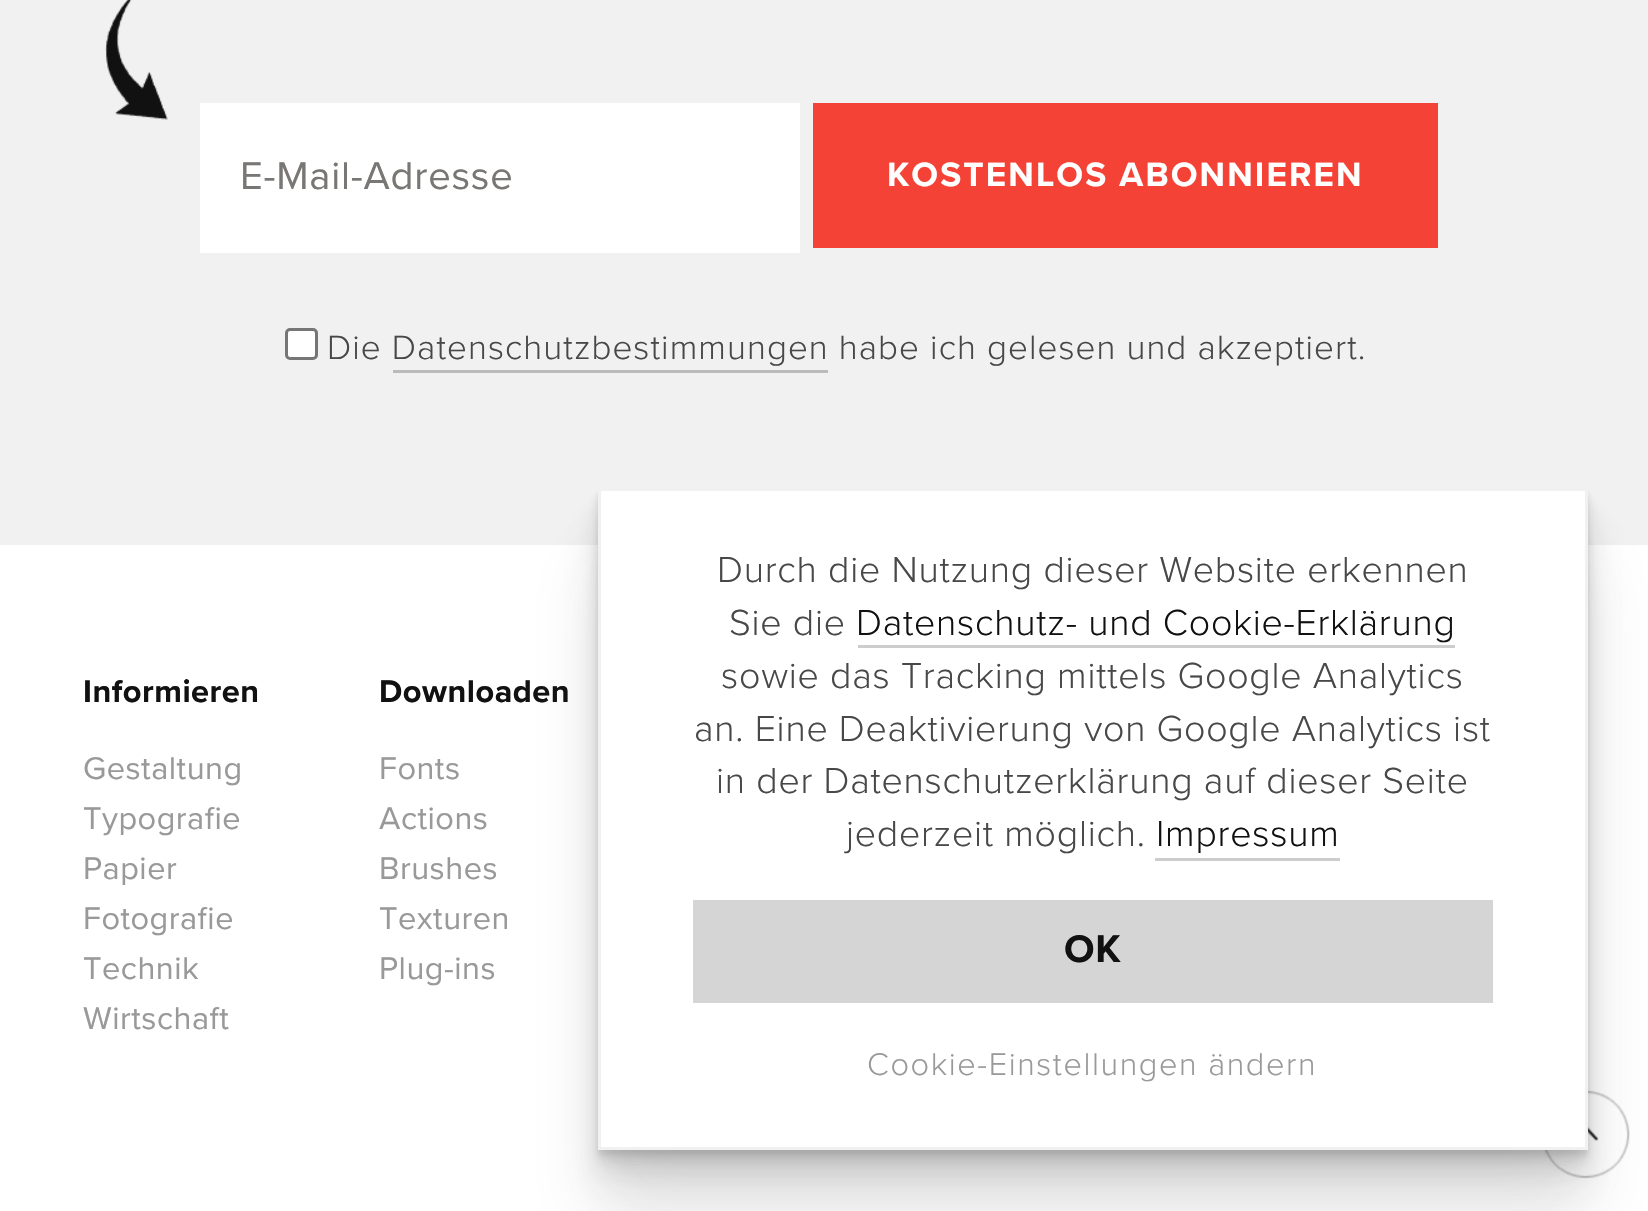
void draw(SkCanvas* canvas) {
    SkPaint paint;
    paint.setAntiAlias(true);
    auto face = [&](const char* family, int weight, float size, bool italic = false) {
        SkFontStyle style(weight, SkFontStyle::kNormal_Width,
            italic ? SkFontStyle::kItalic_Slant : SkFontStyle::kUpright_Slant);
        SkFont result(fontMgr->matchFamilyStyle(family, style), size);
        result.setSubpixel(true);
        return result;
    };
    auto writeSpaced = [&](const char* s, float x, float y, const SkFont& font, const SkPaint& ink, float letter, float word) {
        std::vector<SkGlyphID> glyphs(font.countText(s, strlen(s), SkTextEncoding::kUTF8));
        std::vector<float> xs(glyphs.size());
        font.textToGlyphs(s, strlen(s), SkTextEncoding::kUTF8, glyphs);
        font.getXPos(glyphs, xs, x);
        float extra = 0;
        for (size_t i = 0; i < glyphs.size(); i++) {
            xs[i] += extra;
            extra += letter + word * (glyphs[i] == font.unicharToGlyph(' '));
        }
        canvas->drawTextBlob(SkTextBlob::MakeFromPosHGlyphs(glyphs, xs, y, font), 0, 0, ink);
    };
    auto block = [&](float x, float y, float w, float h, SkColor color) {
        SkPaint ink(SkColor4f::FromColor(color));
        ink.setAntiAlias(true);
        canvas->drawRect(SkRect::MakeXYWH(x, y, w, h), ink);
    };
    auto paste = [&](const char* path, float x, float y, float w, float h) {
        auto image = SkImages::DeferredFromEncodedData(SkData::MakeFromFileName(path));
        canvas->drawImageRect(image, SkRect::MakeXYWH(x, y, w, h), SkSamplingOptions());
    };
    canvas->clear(SK_ColorWHITE);
    block(0, 0, 1648, 545, SkColorSetRGB(241, 241, 241));
    paste("pic1.png", 105, 0, 63, 120);
    block(200, 103, 600, 150, SK_ColorWHITE);
    auto kFont1 = face("Proxima Nova", 400, 40);
    paint.setColor(SkColorSetRGB(121, 119, 116));
    writeSpaced("E-Mail-Adresse", 240, 189, kFont1, paint, 0.75f, 0);
    block(813, 103, 625, 145, SkColorSetRGB(244, 67, 54));
    auto kFont2 = face("Proxima Nova", 700, 35);
    paint.setColor(SK_ColorWHITE);
    writeSpaced("KOSTENLOS ABONNIEREN", 887, 186, kFont2, paint, 2.1f, 0);
    canvas->drawRoundRect(SkRect::MakeXYWH(286.5f, 329.5f, 30, 29), 3.5f, 3.5f, paint);
    paint.setStyle(SkPaint::kStroke_Style);
    paint.setStrokeWidth(3);
    paint.setColor(SkColorSetRGB(118, 118, 118));
    canvas->drawRoundRect(SkRect::MakeXYWH(286.5f, 329.5f, 30, 29), 3.5f, 3.5f, paint);
    auto kFont3 = face("Proxima Nova", 300, 35);
    paint.setStyle(SkPaint::kFill_Style);
    paint.setColor(SkColorSetRGB(72, 72, 72));
    writeSpaced("Die Datenschutzbestimmungen habe ich gelesen und akzeptiert.", 327, 359, kFont3, paint, 1.05f, 0);
    block(393, 370, 435, 3, SkColorSetRGB(187, 187, 187));
    auto kFont4 = face("Proxima Nova", 700, 32.5f);
    paint.setColor(SkColorSetRGB(17, 17, 17));
    writeSpaced("Informieren", 83, 702, kFont4, paint, 0.5f, 0);
    auto kFont5 = face("Proxima Nova", 400, 32.5f);
    paint.setColor(SkColorSetRGB(153, 153, 153));
    writeSpaced("Gestaltung", 83, 779, kFont5, paint, 0.5f, 0);
    writeSpaced("Typografie", 83, 829, kFont5, paint, 0.5f, 0);
    writeSpaced("Papier", 83, 879, kFont5, paint, 0.5f, 0);
    writeSpaced("Fotografie", 83, 929, kFont5, paint, 0.5f, 0);
    writeSpaced("Technik", 83, 979, kFont5, paint, 0.5f, 0);
    writeSpaced("Wirtschaft", 83, 1029, kFont5, paint, 0.5f, 0);
    paint.setColor(SkColorSetRGB(17, 17, 17));
    writeSpaced("Downloaden", 379, 702, kFont4, paint, 0.5f, 0);
    paint.setColor(SkColorSetRGB(153, 153, 153));
    writeSpaced("Fonts", 379, 779, kFont5, paint, 0.5f, 0);
    writeSpaced("Actions", 379, 829, kFont5, paint, 0.5f, 0);
    writeSpaced("Brushes", 379, 879, kFont5, paint, 0.5f, 0);
    writeSpaced("Texturen", 379, 929, kFont5, paint, 0.5f, 0);
    writeSpaced("Plug-ins", 379, 979, kFont5, paint, 0.5f, 0);
    paste("pic2.png", 1544, 1090, 86, 89);
    paint.setColor(SkColorSetARGB(26, 48, 48, 48));
    paint.setMaskFilter(SkMaskFilter::MakeBlur(kNormal_SkBlurStyle, 35));
    canvas->drawRect(SkRect::MakeXYWH(598, 558, 990, 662), paint);
    paint.setMaskFilter(nullptr);
    paint.setMaskFilter(SkMaskFilter::MakeBlur(kNormal_SkBlurStyle, 19));
    canvas->drawRect(SkRect::MakeXYWH(598, 525, 990, 663), paint);
    paint.setMaskFilter(nullptr);
    paint.setMaskFilter(SkMaskFilter::MakeBlur(kNormal_SkBlurStyle, 10));
    canvas->drawRect(SkRect::MakeXYWH(598, 508, 990, 662), paint);
    paint.setMaskFilter(nullptr);
    paint.setMaskFilter(SkMaskFilter::MakeBlur(kNormal_SkBlurStyle, 5));
    canvas->drawRect(SkRect::MakeXYWH(598, 498, 990, 662), paint);
    paint.setMaskFilter(nullptr);
    paint.setMaskFilter(SkMaskFilter::MakeBlur(kNormal_SkBlurStyle, 2.5f));
    canvas->drawRect(SkRect::MakeXYWH(598, 493, 990, 662), paint);
    paint.setMaskFilter(nullptr);
    paint.setColor(SK_ColorWHITE);
    canvas->drawRect(SkRect::MakeXYWH(599.5f, 489.5f, 987, 659), paint);
    paint.setStyle(SkPaint::kStroke_Style);
    paint.setColor(SkColorSetRGB(241, 241, 241));
    canvas->drawRect(SkRect::MakeXYWH(599.5f, 489.5f, 987, 659), paint);
    auto kFont6 = face("Proxima Nova", 300, 37.5f);
    paint.setStyle(SkPaint::kFill_Style);
    paint.setColor(SkColorSetRGB(72, 72, 72));
    writeSpaced("Durch die Nutzung dieser Website erkennen", 717, 582, kFont6, paint, 0.75f, 0);
    writeSpaced("Sie die", 729, 635, kFont6, paint, 0.75f, 0);
    paint.setColor(SkColorSetRGB(17, 17, 17));
    writeSpaced("Datenschutz- und Cookie-Erklärung", 856, 635, kFont6, paint, 0.75f, 0);
    block(858, 645, 597, 3, SkColorSetRGB(205, 205, 205));
    paint.setColor(SkColorSetRGB(72, 72, 72));
    writeSpaced("sowie das Tracking mittels Google Analytics", 721, 688, kFont6, paint, 0.75f, 0);
    writeSpaced("an. Eine Deaktivierung von Google Analytics ist", 694, 741, kFont6, paint, 0.75f, 0);
    writeSpaced("in der Datenschutzerklärung auf dieser Seite", 716, 793, kFont6, paint, 0.75f, 0);
    writeSpaced("jederzeit möglich.", 846, 846, kFont6, paint, 0.75f, 0);
    paint.setColor(SkColorSetRGB(17, 17, 17));
    writeSpaced("Impressum", 1156, 846, kFont6, paint, 0.75f, 0);
    block(1155, 858, 185, 3, SkColorSetRGB(205, 205, 205));
    block(693, 900, 800, 103, SkColorSetRGB(213, 213, 213));
    auto kFont7 = face("Proxima Nova", 700, 40);
    writeSpaced("OK", 1064, 962, kFont7, paint, 0.75f, 0);
    auto kFont8 = face("Proxima Nova", 300, 32.5f);
    paint.setColor(SkColorSetRGB(153, 153, 153));
    writeSpaced("Cookie-Einstellungen ändern", 867, 1075, kFont8, paint, 1.6f, 0);
}
